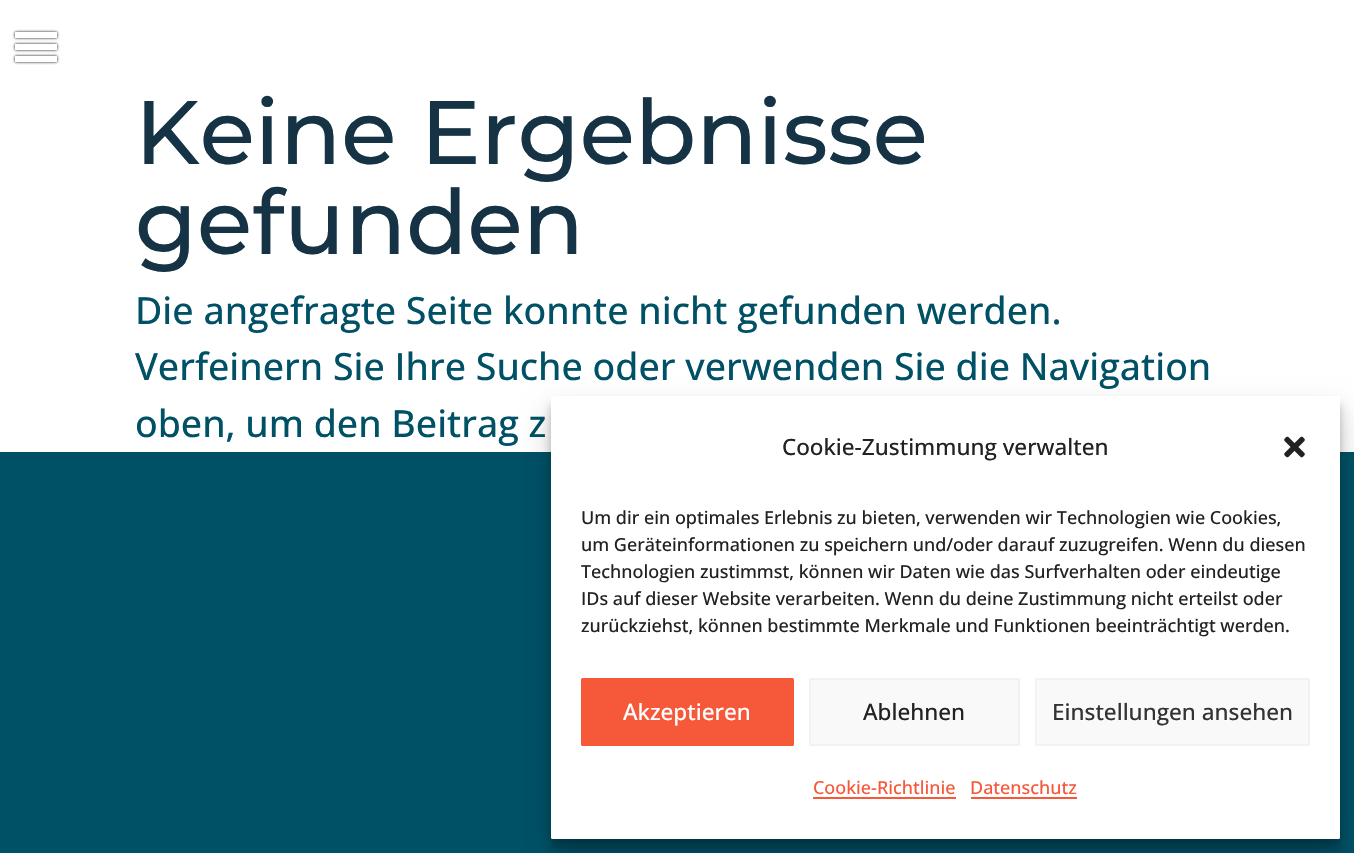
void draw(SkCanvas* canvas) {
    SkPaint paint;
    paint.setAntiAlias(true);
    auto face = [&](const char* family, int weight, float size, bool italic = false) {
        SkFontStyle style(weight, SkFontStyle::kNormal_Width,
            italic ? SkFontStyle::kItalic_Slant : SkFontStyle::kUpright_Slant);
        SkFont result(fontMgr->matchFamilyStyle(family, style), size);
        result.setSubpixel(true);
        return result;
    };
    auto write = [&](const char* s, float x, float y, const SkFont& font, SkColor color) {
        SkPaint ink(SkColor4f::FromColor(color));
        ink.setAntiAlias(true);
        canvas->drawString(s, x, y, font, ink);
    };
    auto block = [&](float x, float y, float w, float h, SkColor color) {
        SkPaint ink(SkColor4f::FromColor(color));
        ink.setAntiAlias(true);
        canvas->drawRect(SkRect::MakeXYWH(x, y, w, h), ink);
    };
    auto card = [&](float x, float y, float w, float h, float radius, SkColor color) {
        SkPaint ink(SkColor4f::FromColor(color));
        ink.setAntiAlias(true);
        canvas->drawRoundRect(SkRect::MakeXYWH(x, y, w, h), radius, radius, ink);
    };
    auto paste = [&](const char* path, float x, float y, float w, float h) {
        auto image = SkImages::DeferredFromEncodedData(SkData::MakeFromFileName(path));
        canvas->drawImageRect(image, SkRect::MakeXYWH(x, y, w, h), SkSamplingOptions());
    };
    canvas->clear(SkColorSetRGB(0, 81, 102));
    block(0, 0, 1354, 452, SK_ColorWHITE);
    paint.setColor(SK_ColorBLACK);
    paint.setMaskFilter(SkMaskFilter::MakeBlur(kNormal_SkBlurStyle, 1.5f));
    canvas->drawRect(SkRect::MakeXYWH(15, 44, 42, 6), paint);
    paint.setMaskFilter(nullptr);
    block(15, 44, 42, 6, SK_ColorWHITE);
    paint.setMaskFilter(SkMaskFilter::MakeBlur(kNormal_SkBlurStyle, 1.5f));
    canvas->drawRect(SkRect::MakeXYWH(15, 32, 42, 6), paint);
    paint.setMaskFilter(nullptr);
    block(15, 32, 42, 6, SK_ColorWHITE);
    paint.setMaskFilter(SkMaskFilter::MakeBlur(kNormal_SkBlurStyle, 1.5f));
    canvas->drawRect(SkRect::MakeXYWH(15, 56, 42, 6), paint);
    paint.setMaskFilter(nullptr);
    block(15, 56, 42, 6, SK_ColorWHITE);
    auto kFont1 = face("Montserrat", 500, 90);
    write("Keine Ergebnisse", 135, 164, kFont1, SkColorSetRGB(21, 51, 69));
    write("gefunden", 135, 254, kFont1, SkColorSetRGB(21, 51, 69));
    auto kFont2 = face("Open Sans", 500, 37.5f);
    write("Die angefragte Seite konnte nicht gefunden werden.", 135, 324, kFont2, SkColorSetRGB(0, 81, 102));
    write("Verfeinern Sie Ihre Suche oder verwenden Sie die Navigation", 135, 380, kFont2, SkColorSetRGB(0, 81, 102));
    write("oben, um den Beitrag z", 135, 437, kFont2, SkColorSetRGB(0, 81, 102));
    paint.setColor(SkColorSetARGB(59, 0, 0, 0));
    paint.setMaskFilter(SkMaskFilter::MakeBlur(kNormal_SkBlurStyle, 4.5f));
    canvas->drawRoundRect(SkRect::MakeXYWH(551, 405, 789, 443), 1.5f, 1.5f, paint);
    paint.setMaskFilter(nullptr);
    paint.setColor(SkColorSetARGB(48, 0, 0, 0));
    paint.setMaskFilter(SkMaskFilter::MakeBlur(kNormal_SkBlurStyle, 15));
    canvas->drawRoundRect(SkRect::MakeXYWH(551, 411, 789, 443), 1.5f, 1.5f, paint);
    paint.setMaskFilter(nullptr);
    card(551, 396, 789, 443, 1.5f, SK_ColorWHITE);
    auto kFont3 = face("Open Sans", 500, 22.5f);
    write("Cookie-Zustimmung verwalten", 782, 455, kFont3, SkColorSetRGB(34, 34, 34));
    paste("pic1.png", 1284, 436, 21, 22);
    auto kFont4 = face("Open Sans", 500, 18);
    write("Um dir ein optimales Erlebnis zu bieten, verwenden wir Technologien wie Cookies,", 581, 524, kFont4, SkColorSetRGB(34, 34, 34));
    write("um Geräteinformationen zu speichern und/oder darauf zuzugreifen. Wenn du diesen", 581, 551, kFont4, SkColorSetRGB(34, 34, 34));
    write("Technologien zustimmst, können wir Daten wie das Surfverhalten oder eindeutige", 581, 578, kFont4, SkColorSetRGB(34, 34, 34));
    write("IDs auf dieser Website verarbeiten. Wenn du deine Zustimmung nicht erteilst oder", 581, 605, kFont4, SkColorSetRGB(34, 34, 34));
    write("zurückziehst, können bestimmte Merkmale und Funktionen beeinträchtigt werden.", 581, 632, kFont4, SkColorSetRGB(34, 34, 34));
    paint.setColor(SkColorSetRGB(246, 88, 58));
    canvas->drawRoundRect(SkRect::MakeXYWH(582, 679, 211, 66), 0.5f, 0.5f, paint);
    paint.setStyle(SkPaint::kStroke_Style);
    paint.setStrokeWidth(2);
    canvas->drawRoundRect(SkRect::MakeXYWH(582, 679, 211, 66), 0.5f, 0.5f, paint);
    write("Akzeptieren", 623, 720, kFont3, SK_ColorWHITE);
    paint.setStyle(SkPaint::kFill_Style);
    paint.setColor(SkColorSetRGB(249, 249, 249));
    canvas->drawRoundRect(SkRect::MakeXYWH(810, 679, 209, 66), 0.5f, 0.5f, paint);
    paint.setStyle(SkPaint::kStroke_Style);
    paint.setColor(SkColorSetRGB(242, 242, 242));
    canvas->drawRoundRect(SkRect::MakeXYWH(810, 679, 209, 66), 0.5f, 0.5f, paint);
    write("Ablehnen", 863, 720, kFont3, SkColorSetRGB(34, 34, 34));
    paint.setStyle(SkPaint::kFill_Style);
    paint.setColor(SkColorSetRGB(249, 249, 249));
    canvas->drawRoundRect(SkRect::MakeXYWH(1036, 679, 273, 66), 0.5f, 0.5f, paint);
    paint.setStyle(SkPaint::kStroke_Style);
    paint.setColor(SkColorSetRGB(242, 242, 242));
    canvas->drawRoundRect(SkRect::MakeXYWH(1036, 679, 273, 66), 0.5f, 0.5f, paint);
    write("Einstellungen ansehen", 1052, 720, kFont3, SkColorSetRGB(51, 51, 51));
    write("Cookie-Richtlinie", 813, 794, kFont4, SkColorSetRGB(246, 88, 58));
    block(813, 797, 143, 2, SkColorSetRGB(246, 88, 58));
    write("Datenschutz", 970, 794, kFont4, SkColorSetRGB(246, 88, 58));
    block(971, 797, 106, 2, SkColorSetRGB(246, 88, 58));
}
